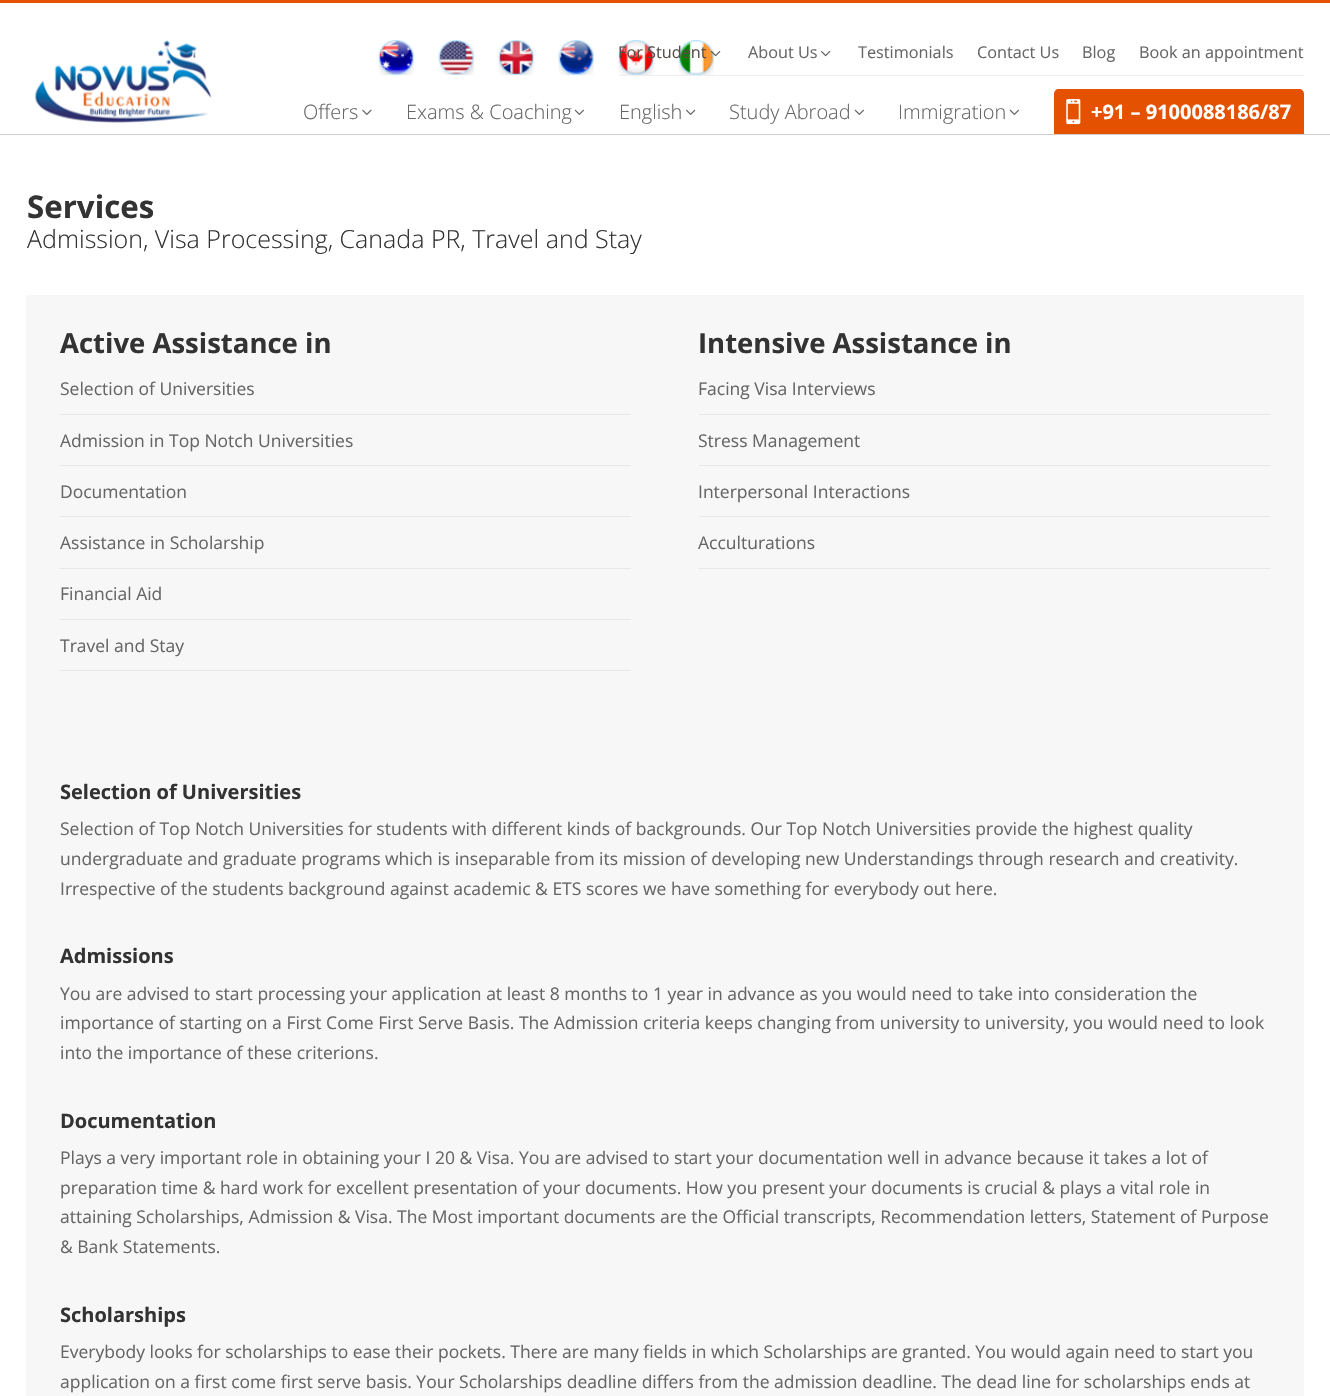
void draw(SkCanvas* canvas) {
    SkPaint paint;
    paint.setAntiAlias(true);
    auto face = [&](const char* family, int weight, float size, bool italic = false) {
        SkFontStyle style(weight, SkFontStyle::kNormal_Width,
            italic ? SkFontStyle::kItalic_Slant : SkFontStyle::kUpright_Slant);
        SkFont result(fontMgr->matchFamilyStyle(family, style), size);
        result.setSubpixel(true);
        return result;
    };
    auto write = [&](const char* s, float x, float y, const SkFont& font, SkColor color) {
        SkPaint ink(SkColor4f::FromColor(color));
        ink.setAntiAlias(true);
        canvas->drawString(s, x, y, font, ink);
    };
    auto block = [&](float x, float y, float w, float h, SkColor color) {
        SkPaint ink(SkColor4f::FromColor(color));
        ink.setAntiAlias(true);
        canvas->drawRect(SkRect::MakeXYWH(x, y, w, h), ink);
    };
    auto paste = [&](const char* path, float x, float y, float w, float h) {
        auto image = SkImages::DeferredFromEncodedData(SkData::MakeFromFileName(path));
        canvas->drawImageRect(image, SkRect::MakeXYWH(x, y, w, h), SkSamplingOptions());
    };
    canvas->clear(SK_ColorWHITE);
    block(0, 0, 1330, 3, SkColorSetRGB(228, 82, 1));
    block(0, 134, 1330, 1, SkColorSetRGB(204, 204, 204));
    paste("pic1.png", 368, 40, 354, 36);
    paste("pic2.png", 34, 40, 178, 83);
    block(619, 75, 685, 1, SkColorSetRGB(238, 238, 238));
    auto kFont1 = face("Open Sans", 400, 16.25f);
    write("For Student", 618, 58, kFont1, SkColorSetRGB(87, 77, 70));
    paste("pic3.png", 711, 51, 10, 6);
    write("About Us", 748, 58, kFont1, SkColorSetRGB(102, 102, 102));
    paste("pic4.png", 821, 51, 10, 6);
    write("Testimonials", 858, 58, kFont1, SkColorSetRGB(102, 102, 102));
    write("Contact Us", 977, 58, kFont1, SkColorSetRGB(102, 102, 102));
    write("Blog", 1082, 58, kFont1, SkColorSetRGB(102, 102, 102));
    write("Book an appointment", 1139, 58, kFont1, SkColorSetRGB(102, 102, 102));
    auto kFont2 = face("Open Sans", 300, 20);
    write("Offers", 303, 119, kFont2, SkColorSetRGB(102, 102, 102));
    paste("pic5.png", 362, 109, 10, 6);
    write("Exams & Coaching", 406, 119, kFont2, SkColorSetRGB(102, 102, 102));
    paste("pic6.png", 574, 109, 10, 6);
    write("English", 619, 119, kFont2, SkColorSetRGB(102, 102, 102));
    paste("pic7.png", 686, 109, 10, 6);
    write("Study Abroad", 729, 119, kFont2, SkColorSetRGB(102, 102, 102));
    paste("pic6.png", 854, 109, 10, 6);
    write("Immigration", 898, 119, kFont2, SkColorSetRGB(102, 102, 102));
    paste("pic6.png", 1009, 109, 10, 6);
    paint.setColor(SkColorSetRGB(228, 82, 1));
    canvas->drawPath(SkPathBuilder().moveTo(1059, 89).lineTo(1299, 89).cubicTo(1302, 89, 1304, 91, 1304, 94).lineTo(1304, 134).lineTo(1054, 134).lineTo(1054, 94).cubicTo(1054, 91, 1056, 89, 1059, 89).close().detach(), paint);
    paste("pic8.png", 1066, 99, 15, 26);
    auto kFont3 = face("Open Sans", 700, 20);
    write("+91 – 9100088186/87", 1091, 119, kFont3, SK_ColorWHITE);
    auto kFont4 = face("Open Sans", 700, 31.25f);
    write("Services", 27, 218, kFont4, SkColorSetRGB(51, 51, 51));
    auto kFont5 = face("Open Sans", 300, 25);
    write("Admission, Visa Processing, Canada PR, Travel and Stay", 27, 248, kFont5, SkColorSetRGB(51, 51, 51));
    block(26, 295, 1278, 1101, SkColorSetRGB(247, 247, 247));
    auto kFont6 = face("Open Sans", 700, 27.5f);
    write("Active Assistance in", 60, 353, kFont6, SkColorSetRGB(51, 51, 51));
    block(60, 414, 571, 1, SkColorSetRGB(231, 231, 231));
    auto kFont7 = face("Open Sans", 400, 17.5f);
    write("Selection of Universities", 60, 395, kFont7, SkColorSetRGB(102, 102, 102));
    block(60, 465, 571, 1, SkColorSetRGB(231, 231, 231));
    write("Admission in Top Notch Universities", 60, 447, kFont7, SkColorSetRGB(102, 102, 102));
    block(60, 516, 571, 1, SkColorSetRGB(231, 231, 231));
    write("Documentation", 60, 498, kFont7, SkColorSetRGB(102, 102, 102));
    block(60, 568, 571, 1, SkColorSetRGB(231, 231, 231));
    write("Assistance in Scholarship", 60, 549, kFont7, SkColorSetRGB(102, 102, 102));
    block(60, 619, 571, 1, SkColorSetRGB(231, 231, 231));
    write("Financial Aid", 60, 600, kFont7, SkColorSetRGB(102, 102, 102));
    block(60, 670, 571, 1, SkColorSetRGB(231, 231, 231));
    write("Travel and Stay", 60, 652, kFont7, SkColorSetRGB(102, 102, 102));
    write("Intensive Assistance in", 698, 353, kFont6, SkColorSetRGB(51, 51, 51));
    block(699, 414, 571, 1, SkColorSetRGB(231, 231, 231));
    write("Facing Visa Interviews", 698, 395, kFont7, SkColorSetRGB(102, 102, 102));
    block(699, 465, 571, 1, SkColorSetRGB(231, 231, 231));
    write("Stress Management", 698, 447, kFont7, SkColorSetRGB(102, 102, 102));
    block(699, 516, 571, 1, SkColorSetRGB(231, 231, 231));
    write("Interpersonal Interactions", 698, 498, kFont7, SkColorSetRGB(102, 102, 102));
    block(699, 568, 571, 1, SkColorSetRGB(231, 231, 231));
    write("Acculturations", 698, 549, kFont7, SkColorSetRGB(102, 102, 102));
    write("Selection of Universities", 60, 799, kFont3, SkColorSetRGB(51, 51, 51));
    write("Selection of Top Notch Universities for students with different kinds of backgrounds. Our Top Notch Universities provide the highest quality", 60, 835, kFont7, SkColorSetRGB(102, 102, 102));
    write("undergraduate and graduate programs which is inseparable from its mission of developing new Understandings through research and creativity.", 60, 865, kFont7, SkColorSetRGB(102, 102, 102));
    write("Irrespective of the students background against academic & ETS scores we have something for everybody out here.", 60, 895, kFont7, SkColorSetRGB(102, 102, 102));
    write("Admissions", 60, 963, kFont3, SkColorSetRGB(51, 51, 51));
    write("You are advised to start processing your application at least 8 months to 1 year in advance as you would need to take into consideration the", 60, 1000, kFont7, SkColorSetRGB(102, 102, 102));
    write("importance of starting on a First Come First Serve Basis. The Admission criteria keeps changing from university to university, you would need to look", 60, 1029, kFont7, SkColorSetRGB(102, 102, 102));
    write("into the importance of these criterions.", 60, 1059, kFont7, SkColorSetRGB(102, 102, 102));
    write("Documentation", 60, 1128, kFont3, SkColorSetRGB(51, 51, 51));
    write("Plays a very important role in obtaining your I 20 & Visa. You are advised to start your documentation well in advance because it takes a lot of", 60, 1164, kFont7, SkColorSetRGB(102, 102, 102));
    write("preparation time & hard work for excellent presentation of your documents. How you present your documents is crucial & plays a vital role in", 60, 1194, kFont7, SkColorSetRGB(102, 102, 102));
    write("attaining Scholarships, Admission & Visa. The Most important documents are the Official transcripts, Recommendation letters, Statement of Purpose", 60, 1223, kFont7, SkColorSetRGB(102, 102, 102));
    write("& Bank Statements.", 60, 1253, kFont7, SkColorSetRGB(102, 102, 102));
    write("Scholarships", 60, 1322, kFont3, SkColorSetRGB(51, 51, 51));
    write("Everybody looks for scholarships to ease their pockets. There are many fields in which Scholarships are granted. You would again need to start you", 60, 1358, kFont7, SkColorSetRGB(102, 102, 102));
    write("application on a first come first serve basis. Your Scholarships deadline differs from the admission deadline. The dead line for scholarships ends at", 60, 1388, kFont7, SkColorSetRGB(102, 102, 102));
}
